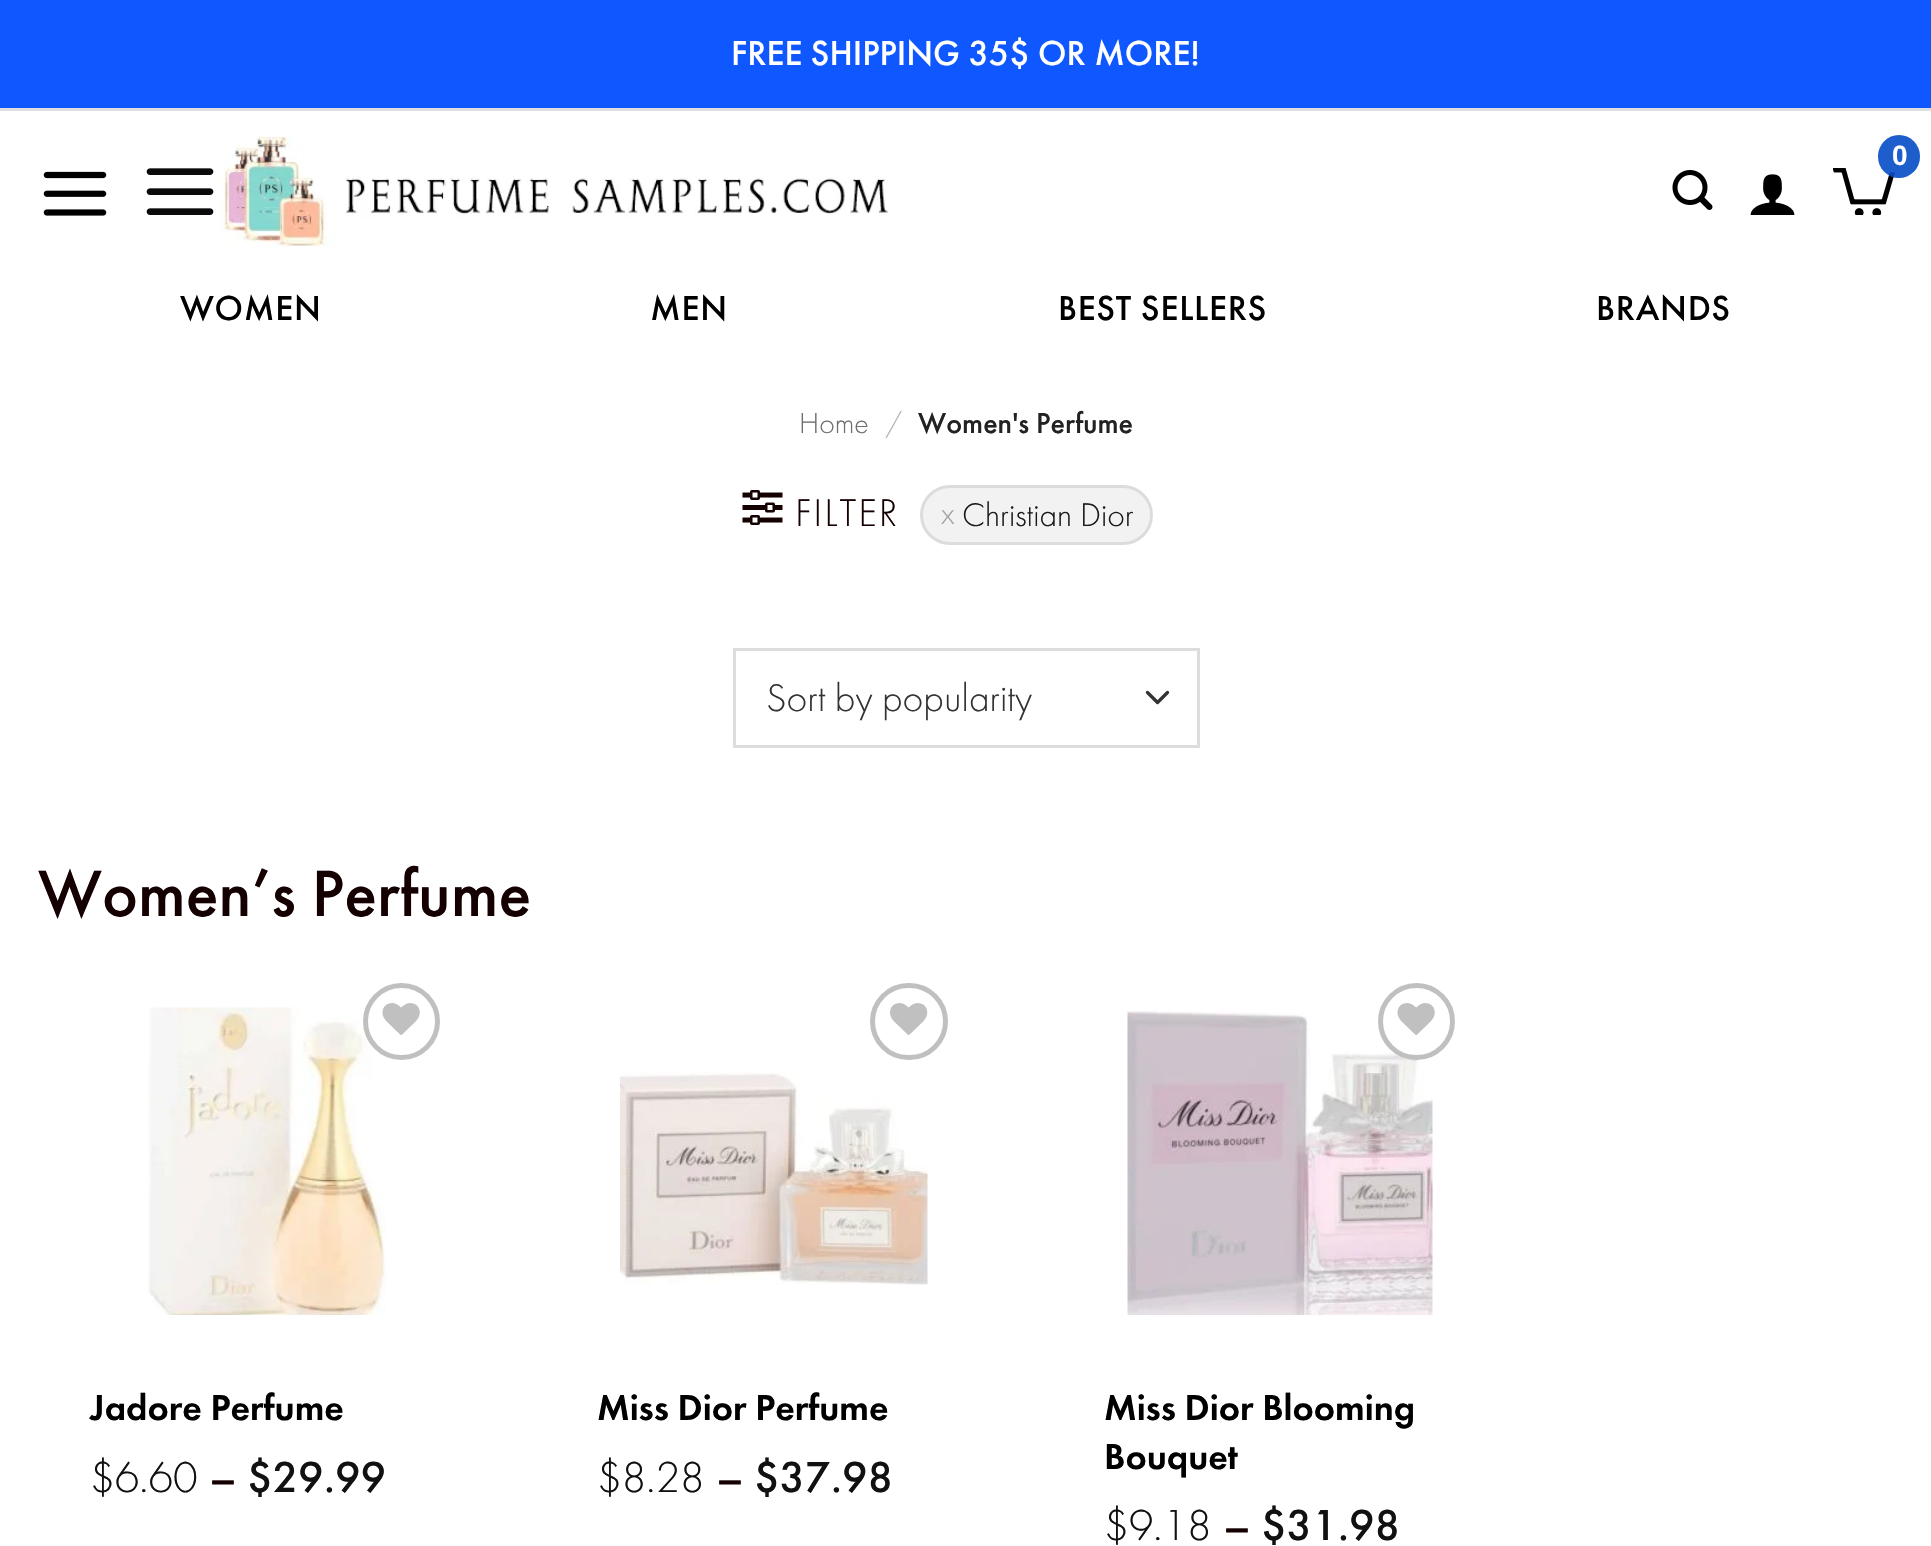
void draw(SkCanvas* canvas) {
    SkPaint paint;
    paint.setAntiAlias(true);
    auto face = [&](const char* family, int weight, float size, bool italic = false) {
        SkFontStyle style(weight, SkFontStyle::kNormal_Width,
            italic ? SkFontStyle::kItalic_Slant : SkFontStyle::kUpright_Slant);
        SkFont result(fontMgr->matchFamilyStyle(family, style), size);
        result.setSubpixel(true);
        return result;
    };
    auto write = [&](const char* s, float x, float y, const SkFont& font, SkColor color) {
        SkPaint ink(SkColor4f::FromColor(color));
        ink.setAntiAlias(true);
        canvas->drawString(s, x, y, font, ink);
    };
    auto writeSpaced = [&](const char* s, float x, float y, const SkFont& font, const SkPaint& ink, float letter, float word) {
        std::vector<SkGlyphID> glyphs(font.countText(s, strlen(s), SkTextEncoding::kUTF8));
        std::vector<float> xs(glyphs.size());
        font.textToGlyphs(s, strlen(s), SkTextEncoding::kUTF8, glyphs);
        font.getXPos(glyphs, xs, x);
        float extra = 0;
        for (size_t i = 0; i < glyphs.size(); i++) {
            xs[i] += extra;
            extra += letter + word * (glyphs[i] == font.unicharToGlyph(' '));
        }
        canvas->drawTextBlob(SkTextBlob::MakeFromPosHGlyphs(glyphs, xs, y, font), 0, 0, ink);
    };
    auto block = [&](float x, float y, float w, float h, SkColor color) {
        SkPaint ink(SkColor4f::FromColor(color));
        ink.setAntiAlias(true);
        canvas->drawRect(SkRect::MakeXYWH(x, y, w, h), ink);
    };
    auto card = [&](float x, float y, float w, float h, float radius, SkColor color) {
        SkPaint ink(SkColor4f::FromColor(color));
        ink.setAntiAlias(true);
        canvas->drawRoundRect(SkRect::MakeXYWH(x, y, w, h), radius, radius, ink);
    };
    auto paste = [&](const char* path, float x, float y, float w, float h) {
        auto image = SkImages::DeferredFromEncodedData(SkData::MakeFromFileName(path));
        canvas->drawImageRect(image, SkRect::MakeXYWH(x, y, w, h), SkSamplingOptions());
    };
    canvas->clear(SK_ColorWHITE);
    block(0, 108, 1931, 3, SkColorSetRGB(223, 223, 223));
    block(0, 0, 1931, 108, SkColorSetRGB(15, 87, 255));
    auto kFont1 = face("Futura PT", 500, 36);
    write("FREE SHIPPING 35$ OR MORE!", 731, 65, kFont1, SK_ColorWHITE);
    paste("pic1.png", 146, 168, 68, 47);
    paste("pic2.png", 220, 135, 669, 115);
    paste("pic3.png", 1833, 168, 62, 47);
    card(1878, 135, 42, 43, 21, SkColorSetARGB(230, 4, 75, 199));
    auto kFont2 = face("Liberation Sans", 700, 28);
    paint.setColor(SK_ColorWHITE);
    writeSpaced("0", 1892, 165, kFont2, paint, -1, 0);
    paste("pic4.png", 1672, 170, 41, 40);
    paste("pic5.png", 1750, 174, 45, 41);
    paste("pic6.png", 43, 171, 64, 45);
    paint.setColor(SK_ColorBLACK);
    writeSpaced("WOMEN", 180, 320, kFont1, paint, 0.75f, 0);
    writeSpaced("MEN", 650, 320, kFont1, paint, 0.75f, 0);
    writeSpaced("BEST SELLERS", 1058, 320, kFont1, paint, 0.75f, 0);
    writeSpaced("BRANDS", 1596, 320, kFont1, paint, 0.75f, 0);
    auto kFont3 = face("Futura PT", 300, 30);
    write("Home", 799, 433, kFont3, SkColorSetRGB(110, 110, 110));
    write("/", 885, 433, kFont3, SkColorSetRGB(178, 178, 178));
    auto kFont4 = face("Futura PT", 500, 30);
    write("Women's Perfume", 918, 433, kFont4, SkColorSetRGB(34, 34, 34));
    paste("pic7.png", 742, 490, 41, 35);
    auto kFont5 = face("Futura PT", 300, 40);
    paint.setColor(SkColorSetRGB(20, 0, 0));
    writeSpaced("FILTER", 795, 526, kFont5, paint, 2, 0);
    card(920, 485, 233, 60, 30, SkColorSetRGB(242, 242, 242));
    paint.setStyle(SkPaint::kStroke_Style);
    paint.setStrokeWidth(3);
    paint.setColor(SkColorSetARGB(26, 26, 26, 26));
    canvas->drawRoundRect(SkRect::MakeXYWH(921.5f, 486.5f, 230, 57), 28.5f, 28.5f, paint);
    auto kFont6 = face("Futura PT", 300, 34);
    write("x", 941, 524, kFont6, SkColorSetRGB(163, 163, 163));
    write("Christian Dior", 962, 526, kFont6, SkColorSetRGB(26, 26, 26));
    paint.setStrokeWidth(3.3f);
    paint.setStrokeCap(SkPaint::kRound_Cap);
    paint.setStrokeJoin(SkPaint::kRound_Join);
    paint.setColor(SkColorSetRGB(51, 51, 51));
    canvas->drawPath(SkPathBuilder().moveTo(1147.5f, 692.5f).lineTo(1157.5f, 702.5f).lineTo(1167.5f, 692.5f).detach(), paint);
    paint.setStrokeWidth(3);
    paint.setStrokeCap(SkPaint::kButt_Cap);
    paint.setStrokeJoin(SkPaint::kMiter_Join);
    paint.setColor(SkColorSetRGB(221, 221, 221));
    canvas->drawRect(SkRect::MakeXYWH(734.5f, 649.5f, 464, 97), paint);
    write("Sort by popularity", 766, 711, kFont5, SkColorSetRGB(51, 51, 51));
    auto kFont7 = face("Futura PT", 500, 68);
    write("Women’s Perfume", 38, 916, kFont7, SkColorSetRGB(20, 0, 0));
    paste("pic8.png", 148, 1007, 238, 308);
    paint.setStrokeWidth(5);
    paint.setColor(SkColorSetRGB(192, 192, 192));
    canvas->drawCircle(401.5f, 1021.5f, 36, paint);
    paste("pic9.png", 382, 1003, 38, 32);
    auto kFont8 = face("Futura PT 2", 500, 37.5f);
    write("Jadore Perfume", 90, 1420, kFont8, SK_ColorBLACK);
    auto kFont9 = face("Futura PT", 300, 45);
    write("$6.60", 90, 1492, kFont9, SkColorSetRGB(17, 17, 17));
    auto kFont10 = face("Futura PT", 500, 45);
    write("–", 209, 1492, kFont10, SkColorSetRGB(20, 0, 0));
    write("$29.99", 247, 1492, kFont10, SkColorSetRGB(17, 17, 17));
    canvas->drawRoundRect(SkRect::MakeXYWH(872.5f, 985.5f, 73, 72), 36, 36, paint);
    paste("pic10.png", 890, 1003, 38, 32);
    paste("pic11.png", 620, 1072, 308, 213);
    write("Miss Dior Perfume", 597, 1420, kFont8, SK_ColorBLACK);
    write("$8.28", 597, 1492, kFont9, SkColorSetRGB(17, 17, 17));
    write("–", 716, 1492, kFont10, SkColorSetRGB(20, 0, 0));
    write("$37.98", 754, 1492, kFont10, SkColorSetRGB(17, 17, 17));
    paste("pic12.png", 1127, 1010, 306, 305);
    canvas->drawCircle(1416.5f, 1021.5f, 36, paint);
    paste("pic9.png", 1397, 1003, 38, 32);
    write("Miss Dior Blooming", 1104, 1420, kFont8, SK_ColorBLACK);
    write("Bouquet", 1104, 1469, kFont8, SK_ColorBLACK);
    write("$9.18", 1104, 1540, kFont9, SkColorSetRGB(17, 17, 17));
    write("–", 1223, 1540, kFont10, SkColorSetRGB(20, 0, 0));
    write("$31.98", 1261, 1540, kFont10, SkColorSetRGB(17, 17, 17));
}
